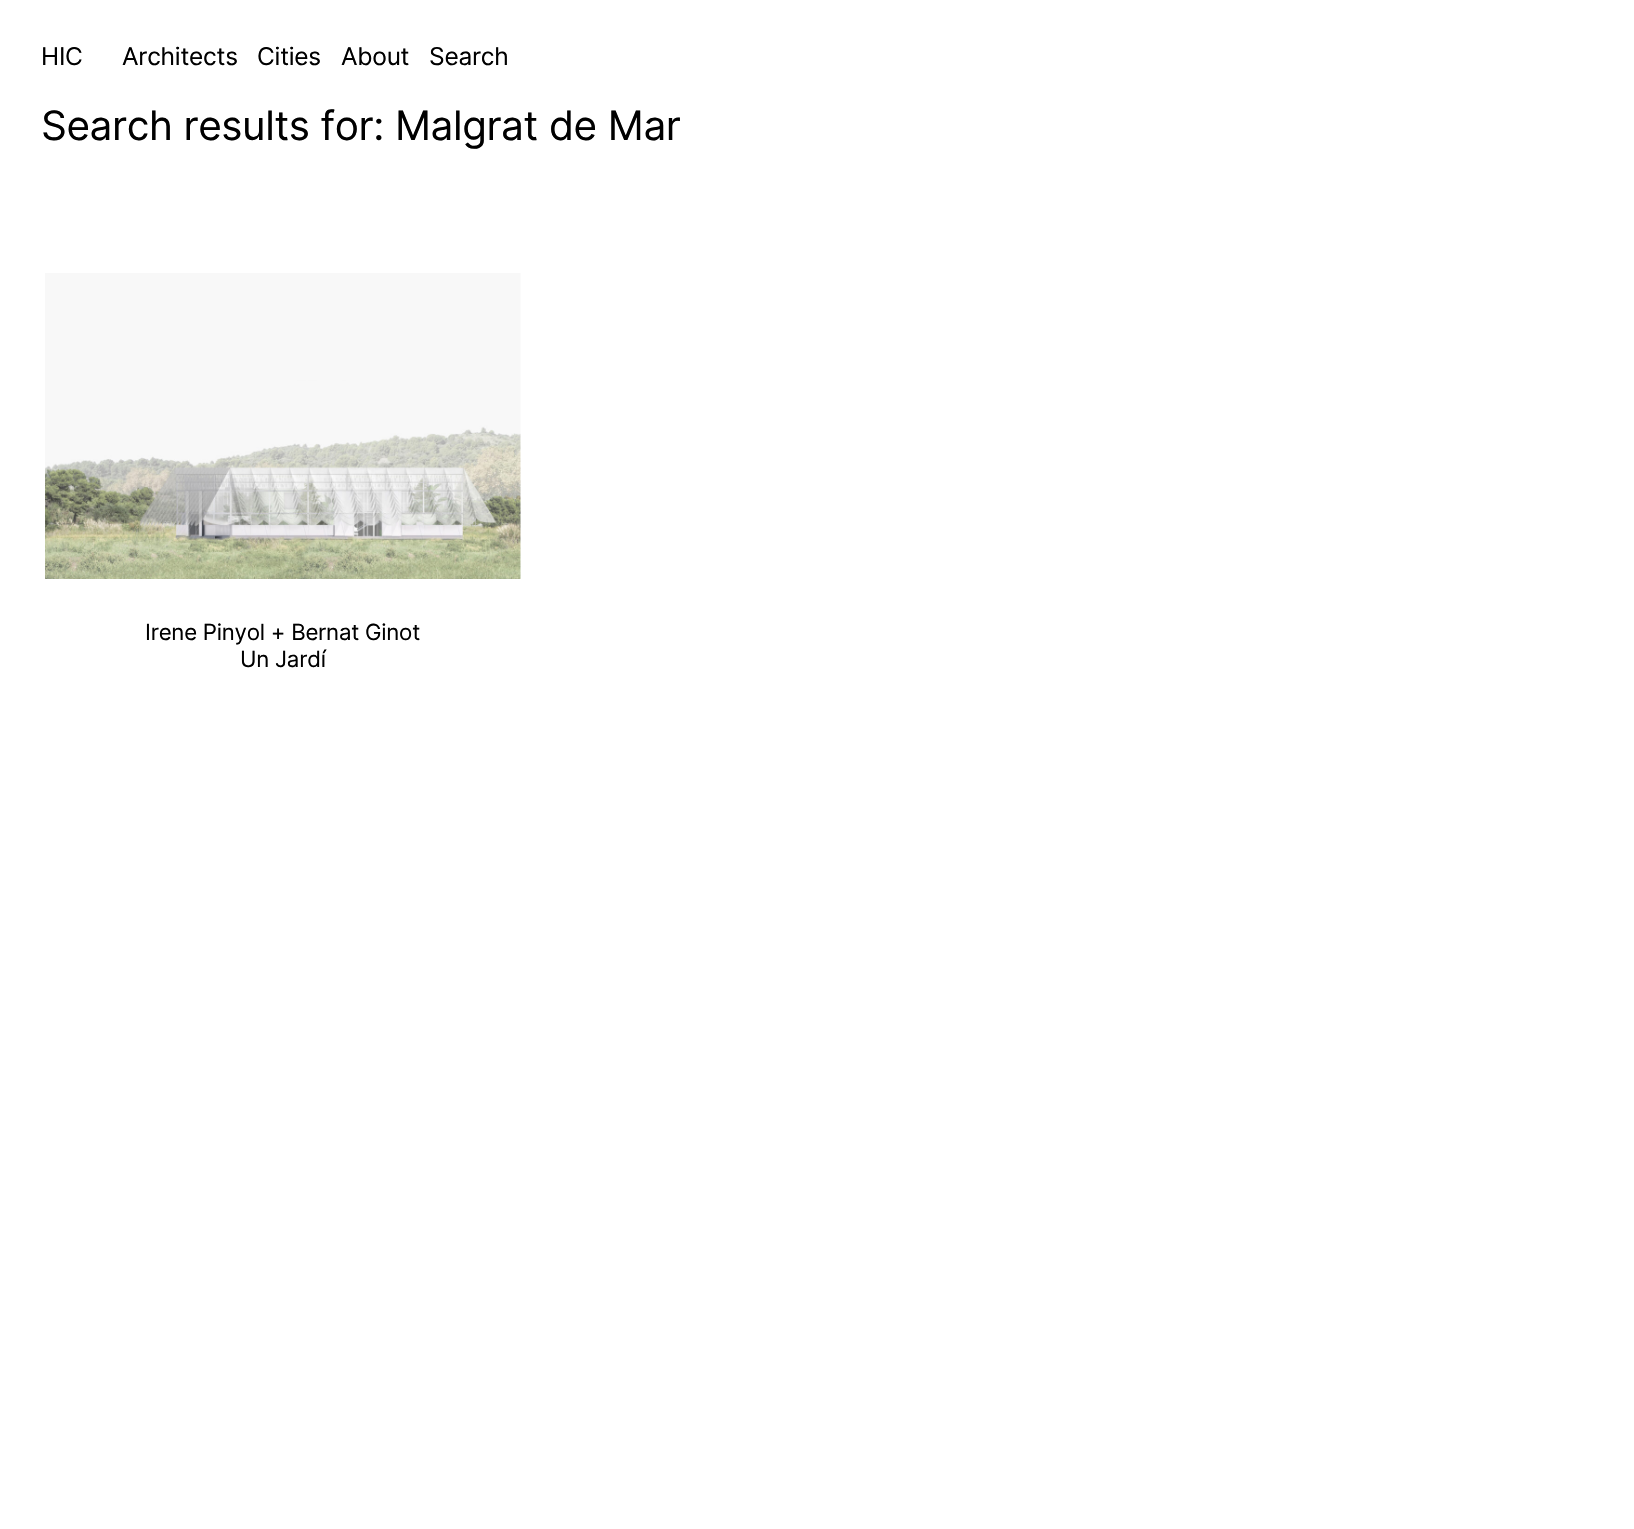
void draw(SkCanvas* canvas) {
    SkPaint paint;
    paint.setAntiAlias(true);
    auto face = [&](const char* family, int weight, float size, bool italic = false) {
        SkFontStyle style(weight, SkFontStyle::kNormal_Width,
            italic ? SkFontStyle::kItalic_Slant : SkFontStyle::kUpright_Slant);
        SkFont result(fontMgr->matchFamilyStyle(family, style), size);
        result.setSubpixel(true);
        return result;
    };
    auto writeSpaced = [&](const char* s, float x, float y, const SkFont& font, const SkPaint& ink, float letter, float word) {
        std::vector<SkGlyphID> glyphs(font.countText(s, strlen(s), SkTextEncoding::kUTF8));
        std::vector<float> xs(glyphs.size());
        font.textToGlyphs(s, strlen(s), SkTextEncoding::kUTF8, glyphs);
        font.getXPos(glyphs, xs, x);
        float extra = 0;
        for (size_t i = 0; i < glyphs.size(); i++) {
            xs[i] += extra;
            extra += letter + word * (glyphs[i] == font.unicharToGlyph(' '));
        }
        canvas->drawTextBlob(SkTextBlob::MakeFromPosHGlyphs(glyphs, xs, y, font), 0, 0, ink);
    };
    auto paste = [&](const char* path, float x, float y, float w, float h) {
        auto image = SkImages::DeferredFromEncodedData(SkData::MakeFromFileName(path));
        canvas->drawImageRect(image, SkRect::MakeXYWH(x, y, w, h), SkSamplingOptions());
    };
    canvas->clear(SK_ColorWHITE);
    auto kFont1 = face("Inter", 400, 24.5f);
    paint.setColor(SK_ColorBLACK);
    writeSpaced("HIC", 41, 65, kFont1, paint, -0.25f, 0);
    writeSpaced("Architects", 122, 65, kFont1, paint, -0.25f, 0);
    writeSpaced("Cities", 257, 65, kFont1, paint, -0.25f, 0);
    writeSpaced("About", 341, 65, kFont1, paint, -0.25f, 0);
    writeSpaced("Search", 429, 65, kFont1, paint, -0.25f, 0);
    auto kFont2 = face("Inter", 400, 40.5f);
    writeSpaced("Search results for: Malgrat de Mar", 41, 140, kFont2, paint, -0.4f, 0);
    paste("pic1.png", 45, 273, 476, 306);
    auto kFont3 = face("Inter", 400, 22.25f);
    writeSpaced("Irene Pinyol + Bernat Ginot", 145, 640, kFont3, paint, -0.25f, 0);
    writeSpaced("Un Jardí", 240, 667, kFont3, paint, -0.25f, 0);
}
